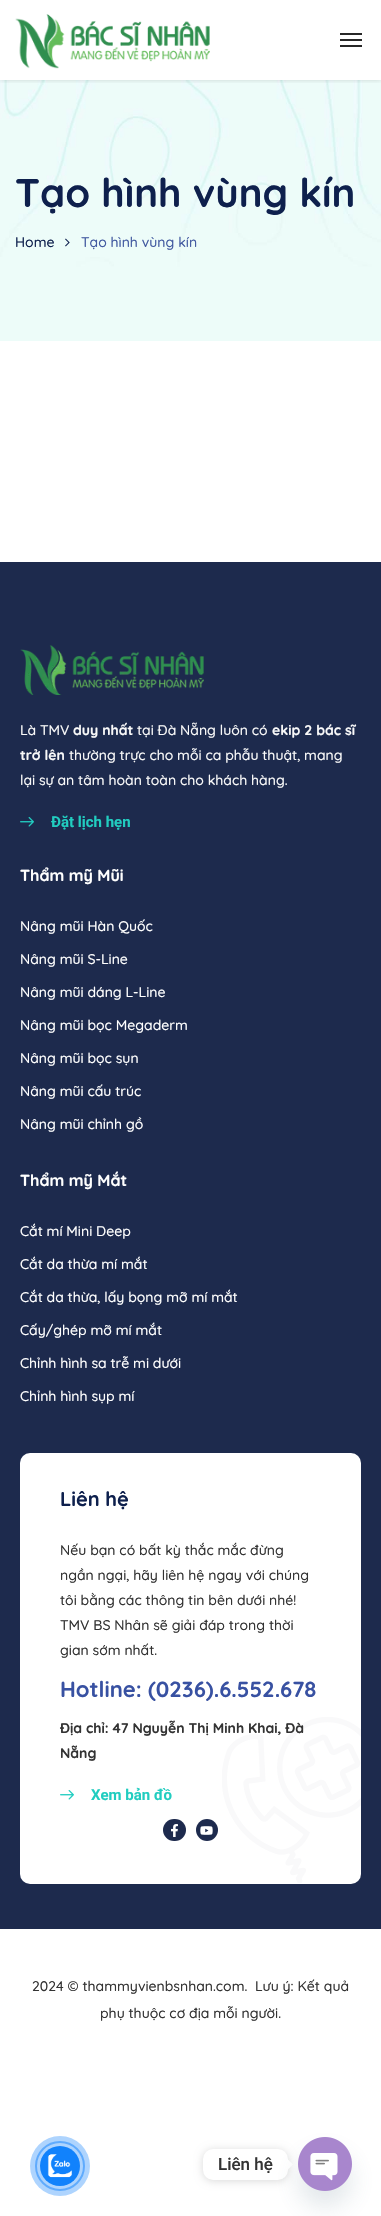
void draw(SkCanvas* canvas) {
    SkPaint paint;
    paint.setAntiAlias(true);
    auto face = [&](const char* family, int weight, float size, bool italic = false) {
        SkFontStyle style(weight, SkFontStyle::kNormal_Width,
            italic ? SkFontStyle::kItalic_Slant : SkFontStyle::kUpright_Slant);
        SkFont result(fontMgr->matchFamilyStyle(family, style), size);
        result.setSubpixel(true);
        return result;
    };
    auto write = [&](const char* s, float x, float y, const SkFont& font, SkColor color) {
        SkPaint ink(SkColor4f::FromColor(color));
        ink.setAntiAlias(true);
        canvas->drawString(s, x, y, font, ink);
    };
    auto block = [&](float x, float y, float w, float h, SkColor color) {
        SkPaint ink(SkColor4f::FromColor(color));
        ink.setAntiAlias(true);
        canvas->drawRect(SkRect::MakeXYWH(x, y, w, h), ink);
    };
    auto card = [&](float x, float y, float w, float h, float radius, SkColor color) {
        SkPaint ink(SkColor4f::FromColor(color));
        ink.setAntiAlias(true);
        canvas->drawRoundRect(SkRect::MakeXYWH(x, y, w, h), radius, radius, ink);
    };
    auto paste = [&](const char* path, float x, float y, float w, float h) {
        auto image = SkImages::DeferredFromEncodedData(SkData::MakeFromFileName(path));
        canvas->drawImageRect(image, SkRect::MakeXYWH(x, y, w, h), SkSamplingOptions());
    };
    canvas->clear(SK_ColorWHITE);
    paste("pic2.png", 0, 80, 381, 261);
    canvas->save();
    canvas->clipRect(SkRect::MakeXYWH(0, 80, 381, 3));
    paint.setColor(SkColorSetARGB(38, 0, 0, 0));
    paint.setMaskFilter(SkMaskFilter::MakeBlur(kNormal_SkBlurStyle, 2.5f));
    canvas->drawRect(SkRect::MakeXYWH(0, 0, 381, 80), paint);
    paint.setMaskFilter(nullptr);
    canvas->restore();
    paste("pic1.png", 15, 14, 195, 55);
    block(340, 33, 22, 2, SkColorSetRGB(40, 40, 40));
    block(340, 39, 22, 2, SkColorSetRGB(40, 40, 40));
    block(340, 45, 22, 2, SkColorSetRGB(40, 40, 40));
    auto kFont1 = face("Quicksand", 700, 40);
    write("Tạo hình vùng kín", 15, 207, kFont1, SkColorSetRGB(14, 32, 77));
    auto kFont2 = face("Quicksand", 500, 14);
    write("Home", 15, 247, kFont2, SkColorSetRGB(14, 32, 77));
    paste("pic3.png", 65, 238, 5, 9);
    write("Tạo hình vùng kín", 81, 247, kFont2, SkColorSetRGB(67, 91, 161));
    block(0, 562, 381, 1367, SkColorSetRGB(29, 42, 77));
    paste("pic4.png", 20, 645, 184, 50);
    write("Là TMV", 20, 735, kFont2, SkColorSetRGB(249, 249, 249));
    auto kFont3 = face("Quicksand", 700, 14);
    write("duy nhất", 73, 735, kFont3, SkColorSetRGB(249, 249, 249));
    write("tại Đà Nẵng luôn có", 137, 735, kFont2, SkColorSetRGB(249, 249, 249));
    write("ekip 2 bác sĩ", 272, 735, kFont3, SkColorSetRGB(249, 249, 249));
    write("trở lên", 20, 760, kFont3, SkColorSetRGB(249, 249, 249));
    write("thường trực cho mỗi ca phẫu thuật, mang", 69, 760, kFont2, SkColorSetRGB(249, 249, 249));
    write("lại sự an tâm hoàn toàn cho khách hàng.", 20, 785, kFont2, SkColorSetRGB(249, 249, 249));
    paste("pic5.png", 20, 817, 14, 10);
    auto kFont4 = face("Roboto", 700, 15);
    write("Đặt lịch hẹn", 51, 827, kFont4, SkColorSetRGB(33, 205, 192));
    auto kFont5 = face("Quicksand", 700, 16);
    write("Thẩm mỹ Mũi", 20, 881, kFont5, SK_ColorWHITE);
    write("Nâng mũi Hàn Quốc", 20, 931, kFont2, SK_ColorWHITE);
    write("Nâng mũi S-Line", 20, 964, kFont2, SK_ColorWHITE);
    write("Nâng mũi dáng L-Line", 20, 997, kFont2, SK_ColorWHITE);
    write("Nâng mũi bọc Megaderm", 20, 1030, kFont2, SK_ColorWHITE);
    write("Nâng mũi bọc sụn", 20, 1063, kFont2, SK_ColorWHITE);
    write("Nâng mũi cấu trúc", 20, 1096, kFont2, SK_ColorWHITE);
    write("Nâng mũi chỉnh gồ", 20, 1129, kFont2, SK_ColorWHITE);
    write("Thẩm mỹ Mắt", 20, 1186, kFont5, SK_ColorWHITE);
    write("Cắt mí Mini Deep", 20, 1236, kFont2, SK_ColorWHITE);
    write("Cắt da thừa mí mắt", 20, 1269, kFont2, SK_ColorWHITE);
    write("Cắt da thừa, lấy bọng mỡ mí mắt", 20, 1302, kFont2, SK_ColorWHITE);
    write("Cấy/ghép mỡ mí mắt", 20, 1335, kFont2, SK_ColorWHITE);
    write("Chỉnh hình sa trễ mi dưới", 20, 1368, kFont2, SK_ColorWHITE);
    write("Chỉnh hình sụp mí", 20, 1401, kFont2, SK_ColorWHITE);
    card(20, 1453, 341, 431, 10, SK_ColorWHITE);
    auto kFont6 = face("Quicksand", 700, 20);
    write("Liên hệ", 60, 1506, kFont6, SkColorSetRGB(14, 32, 77));
    write("Nếu bạn có bất kỳ thắc mắc đừng", 60, 1555, kFont2, SkColorSetRGB(51, 51, 51));
    write("ngần ngại, hãy liên hệ ngay với chúng", 60, 1580, kFont2, SkColorSetRGB(51, 51, 51));
    write("tôi bằng các thông tin bên dưới nhé!", 60, 1605, kFont2, SkColorSetRGB(51, 51, 51));
    write("TMV BS Nhân sẽ giải đáp trong thời", 60, 1630, kFont2, SkColorSetRGB(51, 51, 51));
    write("gian sớm nhất.", 60, 1655, kFont2, SkColorSetRGB(51, 51, 51));
    auto kFont7 = face("Quicksand", 700, 22);
    write("Hotline: (0236).6.552.678", 60, 1697, kFont7, SkColorSetRGB(56, 81, 162));
    paste("pic6.png", 222, 1717, 139, 166);
    write("Địa chỉ: 47 Nguyễn Thị Minh Khai, Đà", 60, 1733, kFont3, SkColorSetRGB(51, 51, 51));
    write("Nẵng", 60, 1758, kFont3, SkColorSetRGB(51, 51, 51));
    paste("pic7.png", 60, 1790, 14, 10);
    write("Xem bản đồ", 91, 1800, kFont4, SkColorSetRGB(33, 205, 192));
    card(163, 1819, 23, 22, 11, SkColorSetRGB(29, 42, 77));
    paste("pic8.png", 171, 1824, 7, 13);
    paint.setColor(SkColorSetRGB(29, 42, 77));
    canvas->drawCircle(207, 1830, 11, paint);
    paste("pic9.png", 200, 1826, 13, 9);
    write("2024 © thammyvienbsnhan.com.  Lưu ý: Kết quả", 32, 1991, kFont2, SkColorSetRGB(51, 51, 51));
    write("phụ thuộc cơ địa mỗi người.", 100, 2018, kFont2, SkColorSetRGB(51, 51, 51));
    paint.setStyle(SkPaint::kStroke_Style);
    paint.setStrokeWidth(2);
    paint.setColor(SkColorSetRGB(136, 193, 254));
    canvas->drawCircle(60, 2166, 24, paint);
    paint.setStyle(SkPaint::kFill_Style);
    paint.setColor(SkColorSetARGB(87, 17, 130, 252));
    canvas->drawCircle(60, 2166, 30, paint);
    paint.setColor(SkColorSetRGB(17, 130, 252));
    canvas->drawCircle(60, 2166, 20, paint);
    paste("pic10.png", 47, 2154, 25, 24);
    paint.setColor(SkColorSetARGB(38, 0, 0, 0));
    paint.setMaskFilter(SkMaskFilter::MakeBlur(kNormal_SkBlurStyle, 4));
    canvas->drawRoundRect(SkRect::MakeXYWH(203, 2150, 85, 31), 10, 10, paint);
    paint.setMaskFilter(nullptr);
    card(203, 2149, 85, 31, 10, SK_ColorWHITE);
    auto kFont8 = face("Roboto", 500, 17);
    write("Liên hệ", 218, 2170, kFont8, SkColorSetRGB(51, 51, 51));
    paint.setColor(SK_ColorWHITE);
    canvas->drawPath(SkPathBuilder().moveTo(288, 2169.5f).lineTo(288, 2159.5f).lineTo(293, 2164.5f).close().detach(), paint);
    paint.setColor(SkColorSetARGB(41, 73, 104, 126));
    paint.setMaskFilter(SkMaskFilter::MakeBlur(kNormal_SkBlurStyle, 12));
    canvas->drawRoundRect(SkRect::MakeXYWH(298, 2153, 54, 54), 27, 27, paint);
    paint.setMaskFilter(nullptr);
    paste("pic11.png", 298, 2137, 54, 54);
}
